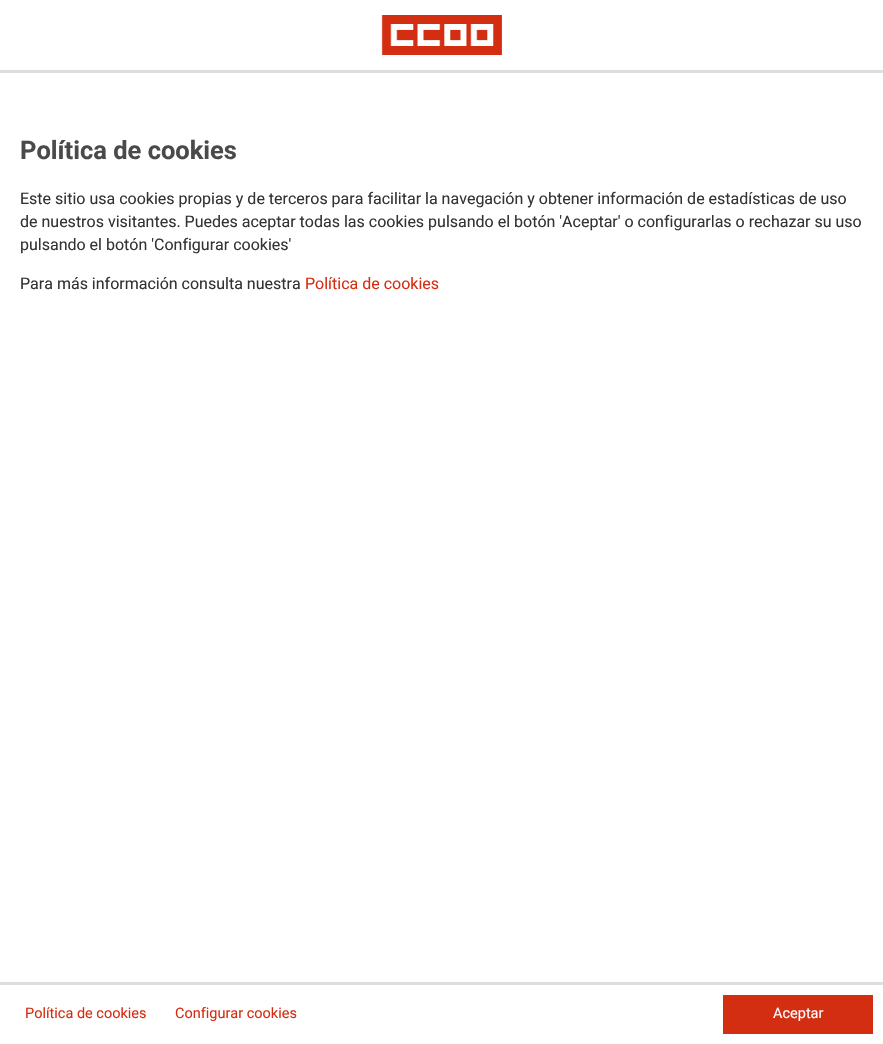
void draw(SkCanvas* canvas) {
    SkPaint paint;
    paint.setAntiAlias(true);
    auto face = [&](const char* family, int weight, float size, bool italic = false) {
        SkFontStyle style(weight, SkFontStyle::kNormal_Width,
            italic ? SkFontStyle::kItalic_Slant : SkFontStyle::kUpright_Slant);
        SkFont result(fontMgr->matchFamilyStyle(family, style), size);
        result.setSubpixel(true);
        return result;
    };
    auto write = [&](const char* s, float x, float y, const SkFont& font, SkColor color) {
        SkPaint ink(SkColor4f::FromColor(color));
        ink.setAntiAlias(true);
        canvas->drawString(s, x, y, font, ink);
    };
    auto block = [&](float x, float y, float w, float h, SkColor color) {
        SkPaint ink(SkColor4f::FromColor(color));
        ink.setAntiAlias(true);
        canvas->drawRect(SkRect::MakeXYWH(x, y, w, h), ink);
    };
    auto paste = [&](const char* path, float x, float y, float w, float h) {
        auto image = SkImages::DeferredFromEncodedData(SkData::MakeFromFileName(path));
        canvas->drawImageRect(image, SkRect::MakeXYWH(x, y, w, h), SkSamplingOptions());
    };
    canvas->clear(SK_ColorWHITE);
    block(0, 70, 883, 3, SkColorSetRGB(221, 221, 221));
    paste("pic1.png", 381, 15, 121, 40);
    auto kFont1 = face("Roboto", 700, 25.5f);
    write("Política de cookies", 20, 159, kFont1, SkColorSetRGB(74, 74, 74));
    auto kFont2 = face("Roboto", 400, 16);
    write("Este sitio usa cookies propias y de terceros para facilitar la navegación y obtener información de estadísticas de uso", 20, 204, kFont2, SkColorSetRGB(51, 51, 51));
    write("de nuestros visitantes. Puedes aceptar todas las cookies pulsando el botón 'Aceptar' o configurarlas o rechazar su uso", 20, 227, kFont2, SkColorSetRGB(51, 51, 51));
    write("pulsando el botón 'Configurar cookies'", 20, 250, kFont2, SkColorSetRGB(51, 51, 51));
    write("Para más información consulta nuestra", 20, 289, kFont2, SkColorSetRGB(51, 51, 51));
    write("Política de cookies", 305, 289, kFont2, SkColorSetRGB(212, 46, 18));
    block(0, 982, 883, 3, SkColorSetRGB(221, 221, 221));
    auto kFont3 = face("Roboto", 400, 14.5f);
    write("Política de cookies", 25, 1018, kFont3, SkColorSetRGB(212, 46, 18));
    write("Configurar cookies", 175, 1018, kFont3, SkColorSetRGB(212, 46, 18));
    block(723, 995, 150, 39, SkColorSetRGB(212, 46, 18));
    write("Aceptar", 773, 1018, kFont3, SK_ColorWHITE);
}
